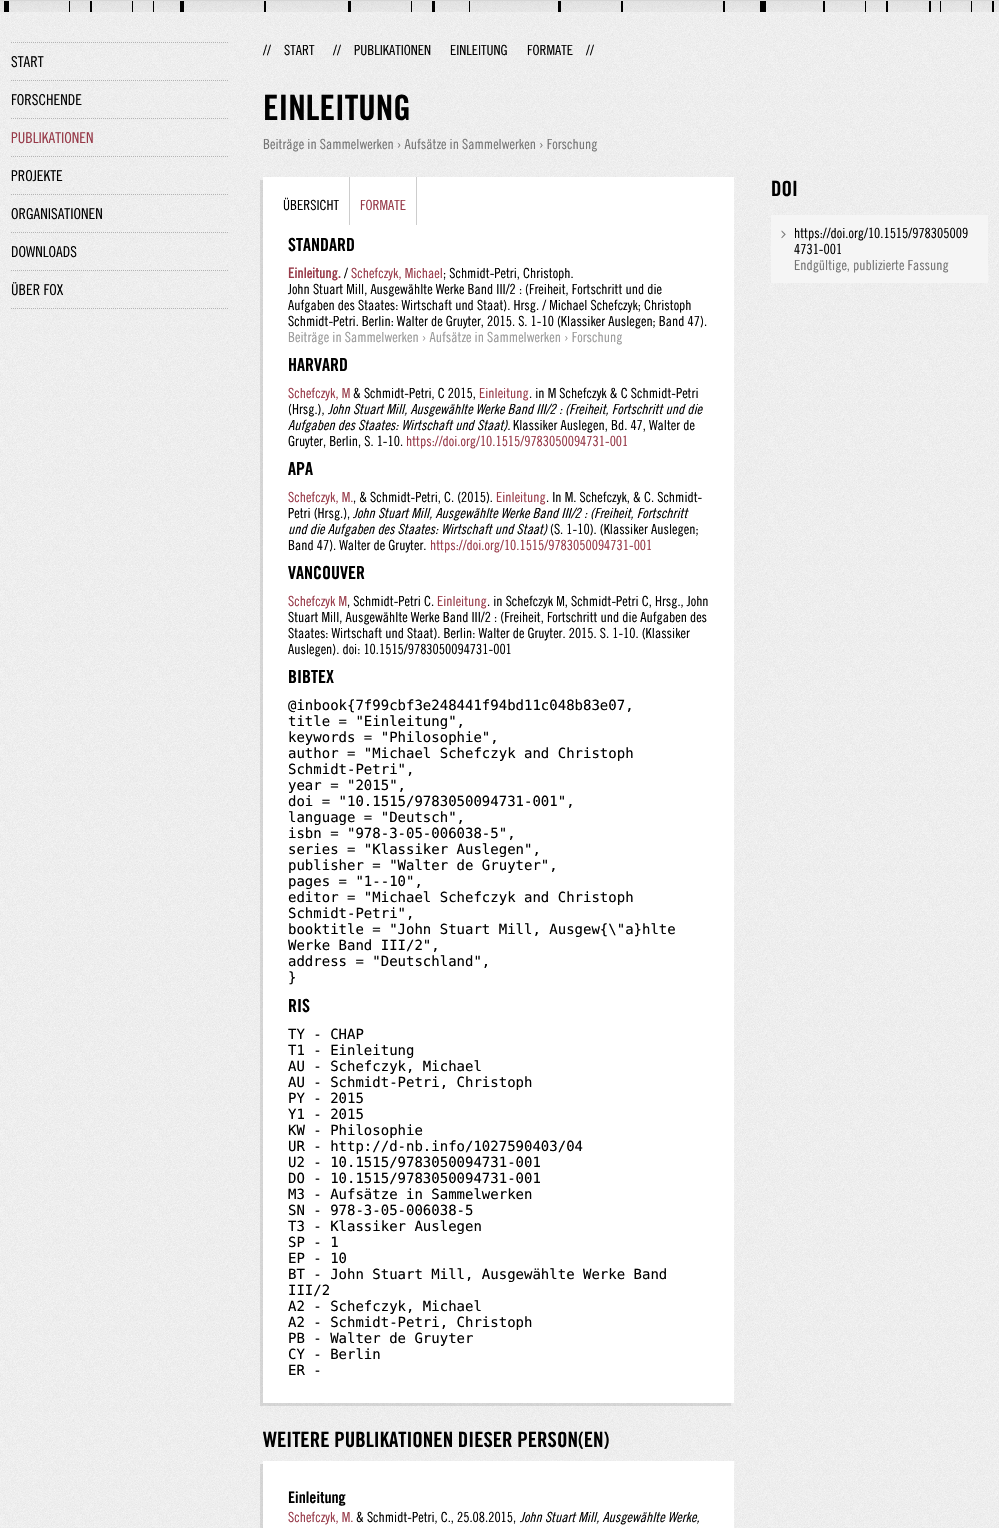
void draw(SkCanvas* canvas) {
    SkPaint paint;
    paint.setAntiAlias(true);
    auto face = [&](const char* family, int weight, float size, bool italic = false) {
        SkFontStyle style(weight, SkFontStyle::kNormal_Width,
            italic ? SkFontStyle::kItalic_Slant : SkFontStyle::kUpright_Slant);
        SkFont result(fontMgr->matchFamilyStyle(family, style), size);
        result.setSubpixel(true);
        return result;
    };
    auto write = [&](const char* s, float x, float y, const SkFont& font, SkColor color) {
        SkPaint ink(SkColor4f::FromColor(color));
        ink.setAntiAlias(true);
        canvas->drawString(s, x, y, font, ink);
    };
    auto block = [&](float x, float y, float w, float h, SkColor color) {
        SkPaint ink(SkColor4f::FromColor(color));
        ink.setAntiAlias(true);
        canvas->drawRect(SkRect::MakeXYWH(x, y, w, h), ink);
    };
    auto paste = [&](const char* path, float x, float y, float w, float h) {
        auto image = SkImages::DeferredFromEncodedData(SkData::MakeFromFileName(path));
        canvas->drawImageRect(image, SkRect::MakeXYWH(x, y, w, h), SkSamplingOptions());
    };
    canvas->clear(SK_ColorWHITE);
    paste("pic1.png", 0, 12, 999, 1516);
    block(0, 0, 999, 1, SkColorSetRGB(214, 214, 214));
    paste("pic2.png", 0, 1, 999, 11);
    paint.setStyle(SkPaint::kStroke_Style);
    paint.setStrokeWidth(1);
    paint.setColor(SkColorSetRGB(181, 181, 181));
    paint.setPathEffect(SkDashPathEffect::Make({{1, 1}}, 0));
    canvas->drawPath(SkPathBuilder().moveTo(11, 308.5f).lineTo(228, 308.5f).detach(), paint);
    paint.setPathEffect(nullptr);
    paint.setPathEffect(SkDashPathEffect::Make({{1, 1}}, 0));
    canvas->drawPath(SkPathBuilder().moveTo(11, 42.5f).lineTo(228, 42.5f).detach(), paint);
    paint.setPathEffect(nullptr);
    auto kFont1 = face("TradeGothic", 400, 15);
    write("START", 11, 67, kFont1, SK_ColorBLACK);
    paint.setPathEffect(SkDashPathEffect::Make({{1, 1}}, 0));
    canvas->drawPath(SkPathBuilder().moveTo(11, 80.5f).lineTo(228, 80.5f).detach(), paint);
    paint.setPathEffect(nullptr);
    write("FORSCHENDE", 11, 105, kFont1, SK_ColorBLACK);
    paint.setPathEffect(SkDashPathEffect::Make({{1, 1}}, 0));
    canvas->drawPath(SkPathBuilder().moveTo(11, 118.5f).lineTo(228, 118.5f).detach(), paint);
    paint.setPathEffect(nullptr);
    write("PUBLIKATIONEN", 11, 143, kFont1, SkColorSetRGB(151, 57, 72));
    paint.setPathEffect(SkDashPathEffect::Make({{1, 1}}, 0));
    canvas->drawPath(SkPathBuilder().moveTo(11, 156.5f).lineTo(228, 156.5f).detach(), paint);
    paint.setPathEffect(nullptr);
    write("PROJEKTE", 11, 181, kFont1, SK_ColorBLACK);
    paint.setPathEffect(SkDashPathEffect::Make({{1, 1}}, 0));
    canvas->drawPath(SkPathBuilder().moveTo(11, 194.5f).lineTo(228, 194.5f).detach(), paint);
    paint.setPathEffect(nullptr);
    write("ORGANISATIONEN", 11, 219, kFont1, SK_ColorBLACK);
    paint.setPathEffect(SkDashPathEffect::Make({{1, 1}}, 0));
    canvas->drawPath(SkPathBuilder().moveTo(11, 232.5f).lineTo(228, 232.5f).detach(), paint);
    paint.setPathEffect(nullptr);
    write("DOWNLOADS", 11, 257, kFont1, SK_ColorBLACK);
    paint.setPathEffect(SkDashPathEffect::Make({{1, 1}}, 0));
    canvas->drawPath(SkPathBuilder().moveTo(11, 270.5f).lineTo(228, 270.5f).detach(), paint);
    paint.setPathEffect(nullptr);
    write("ÜBER FOX", 11, 295, kFont1, SK_ColorBLACK);
    auto kFont2 = face("TradeGothic", 400, 14);
    write("//", 263, 55, kFont2, SK_ColorBLACK);
    write("START", 284, 55, kFont2, SK_ColorBLACK);
    write("//", 333, 55, kFont2, SK_ColorBLACK);
    write("PUBLIKATIONEN", 354, 55, kFont2, SK_ColorBLACK);
    write("EINLEITUNG", 450, 55, kFont2, SK_ColorBLACK);
    write("FORMATE", 527, 55, kFont2, SK_ColorBLACK);
    write("//", 586, 55, kFont2, SK_ColorBLACK);
    auto kFont3 = face("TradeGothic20", 700, 35);
    write("EINLEITUNG", 263, 120, kFont3, SK_ColorBLACK);
    write("Beiträge in Sammelwerken › Aufsätze in Sammelwerken › Forschung", 263, 149, kFont2, SkColorSetRGB(115, 115, 115));
    paint.setStyle(SkPaint::kFill_Style);
    paint.setColor(SkColorSetARGB(26, 0, 0, 0));
    canvas->drawPath(SkPathBuilder().moveTo(260, 180).lineTo(260, 1406).lineTo(731, 1406).lineTo(731, 1403).lineTo(263, 1403).lineTo(263, 180).close().detach(), paint);
    block(263, 177, 471, 1226, SK_ColorWHITE);
    block(349, 177, 1, 48, SkColorSetRGB(205, 205, 205));
    write("ÜBERSICHT", 283, 210, kFont2, SK_ColorBLACK);
    block(416, 177, 1, 48, SkColorSetRGB(205, 205, 205));
    write("FORMATE", 360, 210, kFont2, SkColorSetRGB(151, 57, 72));
    auto kFont4 = face("TradeGothic20", 700, 18);
    write("STANDARD", 288, 251, kFont4, SK_ColorBLACK);
    auto kFont5 = face("TradeGothic", 700, 14);
    write("Einleitung.", 288, 278, kFont5, SkColorSetRGB(151, 57, 72));
    write("/", 344, 278, kFont2, SK_ColorBLACK);
    write("Schefczyk, Michael", 351, 278, kFont2, SkColorSetRGB(151, 57, 72));
    write("; Schmidt-Petri, Christoph.", 443, 278, kFont2, SK_ColorBLACK);
    write("John Stuart Mill, Ausgewählte Werke Band III/2 : (Freiheit, Fortschritt und die", 288, 294, kFont2, SK_ColorBLACK);
    write("Aufgaben des Staates: Wirtschaft und Staat). Hrsg. / Michael Schefczyk; Christoph", 288, 310, kFont2, SK_ColorBLACK);
    write("Schmidt-Petri. Berlin: Walter de Gruyter, 2015. S. 1-10 (Klassiker Auslegen; Band 47).", 288, 326, kFont2, SK_ColorBLACK);
    write("Beiträge in Sammelwerken › Aufsätze in Sammelwerken › Forschung", 288, 342, kFont2, SkColorSetRGB(153, 153, 153));
    write("HARVARD", 288, 371, kFont4, SK_ColorBLACK);
    write("Schefczyk, M", 288, 398, kFont2, SkColorSetRGB(151, 57, 72));
    write("& Schmidt-Petri, C 2015,", 353, 398, kFont2, SK_ColorBLACK);
    write("Einleitung", 479, 398, kFont2, SkColorSetRGB(151, 57, 72));
    write(". in M Schefczyk & C Schmidt-Petri", 529, 398, kFont2, SK_ColorBLACK);
    write("(Hrsg.),", 288, 414, kFont2, SK_ColorBLACK);
    auto kFont6 = face("TradeGothic", 400, 14, true);
    write("John Stuart Mill, Ausgewählte Werke Band III/2 : (Freiheit, Fortschritt und die", 328, 414, kFont6, SK_ColorBLACK);
    write("Aufgaben des Staates: Wirtschaft und Staat).", 288, 430, kFont6, SK_ColorBLACK);
    write("Klassiker Auslegen, Bd. 47, Walter de", 513, 430, kFont2, SK_ColorBLACK);
    write("Gruyter, Berlin, S. 1-10.", 288, 446, kFont2, SK_ColorBLACK);
    write("https://doi.org/10.1515/9783050094731-001", 406, 446, kFont2, SkColorSetRGB(151, 57, 72));
    write("APA", 288, 475, kFont4, SK_ColorBLACK);
    write("Schefczyk, M.", 288, 502, kFont2, SkColorSetRGB(151, 57, 72));
    write(", & Schmidt-Petri, C. (2015).", 353, 502, kFont2, SK_ColorBLACK);
    write("Einleitung", 496, 502, kFont2, SkColorSetRGB(151, 57, 72));
    write(". In M. Schefczyk, & C. Schmidt-", 546, 502, kFont2, SK_ColorBLACK);
    write("Petri (Hrsg.),", 288, 518, kFont2, SK_ColorBLACK);
    write("John Stuart Mill, Ausgewählte Werke Band III/2 : (Freiheit, Fortschritt", 353, 518, kFont6, SK_ColorBLACK);
    write("und die Aufgaben des Staates: Wirtschaft und Staat)", 288, 534, kFont6, SK_ColorBLACK);
    write("(S. 1-10). (Klassiker Auslegen;", 550, 534, kFont2, SK_ColorBLACK);
    write("Band 47). Walter de Gruyter.", 288, 550, kFont2, SK_ColorBLACK);
    write("https://doi.org/10.1515/9783050094731-001", 430, 550, kFont2, SkColorSetRGB(151, 57, 72));
    write("VANCOUVER", 288, 579, kFont4, SK_ColorBLACK);
    write("Schefczyk M", 288, 606, kFont2, SkColorSetRGB(151, 57, 72));
    write(", Schmidt-Petri C.", 347, 606, kFont2, SK_ColorBLACK);
    write("Einleitung", 437, 606, kFont2, SkColorSetRGB(151, 57, 72));
    write(". in Schefczyk M, Schmidt-Petri C, Hrsg., John", 487, 606, kFont2, SK_ColorBLACK);
    write("Stuart Mill, Ausgewählte Werke Band III/2 : (Freiheit, Fortschritt und die Aufgaben des", 288, 622, kFont2, SK_ColorBLACK);
    write("Staates: Wirtschaft und Staat). Berlin: Walter de Gruyter. 2015. S. 1-10. (Klassiker", 288, 638, kFont2, SK_ColorBLACK);
    write("Auslegen). doi: 10.1515/9783050094731-001", 288, 654, kFont2, SK_ColorBLACK);
    write("BIBTEX", 288, 683, kFont4, SK_ColorBLACK);
    auto kFont7 = face("DejaVu Sans Mono", 400, 14);
    write("@inbook{7f99cbf3e248441f94bd11c048b83e07,", 288, 710, kFont7, SK_ColorBLACK);
    write("title = \"Einleitung\",", 288, 726, kFont7, SK_ColorBLACK);
    write("keywords = \"Philosophie\",", 288, 742, kFont7, SK_ColorBLACK);
    write("author = \"Michael Schefczyk and Christoph", 288, 758, kFont7, SK_ColorBLACK);
    write("Schmidt-Petri\",", 288, 774, kFont7, SK_ColorBLACK);
    write("year = \"2015\",", 288, 790, kFont7, SK_ColorBLACK);
    write("doi = \"10.1515/9783050094731-001\",", 288, 806, kFont7, SK_ColorBLACK);
    write("language = \"Deutsch\",", 288, 822, kFont7, SK_ColorBLACK);
    write("isbn = \"978-3-05-006038-5\",", 288, 838, kFont7, SK_ColorBLACK);
    write("series = \"Klassiker Auslegen\",", 288, 854, kFont7, SK_ColorBLACK);
    write("publisher = \"Walter de Gruyter\",", 288, 870, kFont7, SK_ColorBLACK);
    write("pages = \"1--10\",", 288, 886, kFont7, SK_ColorBLACK);
    write("editor = \"Michael Schefczyk and Christoph", 288, 902, kFont7, SK_ColorBLACK);
    write("Schmidt-Petri\",", 288, 918, kFont7, SK_ColorBLACK);
    write("booktitle = \"John Stuart Mill, Ausgew{\\\"a}hlte", 288, 934, kFont7, SK_ColorBLACK);
    write("Werke Band III/2\",", 288, 950, kFont7, SK_ColorBLACK);
    write("address = \"Deutschland\",", 288, 966, kFont7, SK_ColorBLACK);
    write("}", 288, 982, kFont7, SK_ColorBLACK);
    write("RIS", 288, 1012, kFont4, SK_ColorBLACK);
    write("TY - CHAP", 288, 1039, kFont7, SK_ColorBLACK);
    write("T1 - Einleitung", 288, 1055, kFont7, SK_ColorBLACK);
    write("AU - Schefczyk, Michael", 288, 1071, kFont7, SK_ColorBLACK);
    write("AU - Schmidt-Petri, Christoph", 288, 1087, kFont7, SK_ColorBLACK);
    write("PY - 2015", 288, 1103, kFont7, SK_ColorBLACK);
    write("Y1 - 2015", 288, 1119, kFont7, SK_ColorBLACK);
    write("KW - Philosophie", 288, 1135, kFont7, SK_ColorBLACK);
    write("UR - http://d-nb.info/1027590403/04", 288, 1151, kFont7, SK_ColorBLACK);
    write("U2 - 10.1515/9783050094731-001", 288, 1167, kFont7, SK_ColorBLACK);
    write("DO - 10.1515/9783050094731-001", 288, 1183, kFont7, SK_ColorBLACK);
    write("M3 - Aufsätze in Sammelwerken", 288, 1199, kFont7, SK_ColorBLACK);
    write("SN - 978-3-05-006038-5", 288, 1215, kFont7, SK_ColorBLACK);
    write("T3 - Klassiker Auslegen", 288, 1231, kFont7, SK_ColorBLACK);
    write("SP - 1", 288, 1247, kFont7, SK_ColorBLACK);
    write("EP - 10", 288, 1263, kFont7, SK_ColorBLACK);
    write("BT - John Stuart Mill, Ausgewählte Werke Band", 288, 1279, kFont7, SK_ColorBLACK);
    write("III/2", 288, 1295, kFont7, SK_ColorBLACK);
    write("A2 - Schefczyk, Michael", 288, 1311, kFont7, SK_ColorBLACK);
    write("A2 - Schmidt-Petri, Christoph", 288, 1327, kFont7, SK_ColorBLACK);
    write("PB - Walter de Gruyter", 288, 1343, kFont7, SK_ColorBLACK);
    write("CY - Berlin", 288, 1359, kFont7, SK_ColorBLACK);
    write("ER -", 288, 1375, kFont7, SK_ColorBLACK);
    auto kFont8 = face("TradeGothic20", 700, 21);
    write("WEITERE PUBLIKATIONEN DIESER PERSON(EN)", 263, 1447, kFont8, SK_ColorBLACK);
    canvas->drawPath(SkPathBuilder().moveTo(260, 1464).lineTo(260, 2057).lineTo(731, 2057).lineTo(731, 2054).lineTo(263, 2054).lineTo(263, 1464).close().detach(), paint);
    block(263, 1461, 471, 67, SK_ColorWHITE);
    auto kFont9 = face("TradeGothic20", 700, 16);
    write("Einleitung", 288, 1503, kFont9, SK_ColorBLACK);
    write("Schefczyk, M.", 288, 1522, kFont2, SkColorSetRGB(151, 57, 72));
    write("& Schmidt-Petri, C., 25.08.2015,", 356, 1522, kFont2, SK_ColorBLACK);
    write("John Stuart Mill, Ausgewählte Werke,", 520, 1522, kFont6, SK_ColorBLACK);
    write("DOI", 771, 196, kFont8, SK_ColorBLACK);
    block(771, 215, 217, 68, SkColorSetRGB(245, 245, 245));
    paste("pic3.png", 781, 230, 5, 9);
    write("https://doi.org/10.1515/978305009", 794, 238, kFont2, SK_ColorBLACK);
    write("4731-001", 794, 254, kFont2, SK_ColorBLACK);
    write("Endgültige, publizierte Fassung", 794, 270, kFont2, SkColorSetRGB(115, 115, 115));
}
